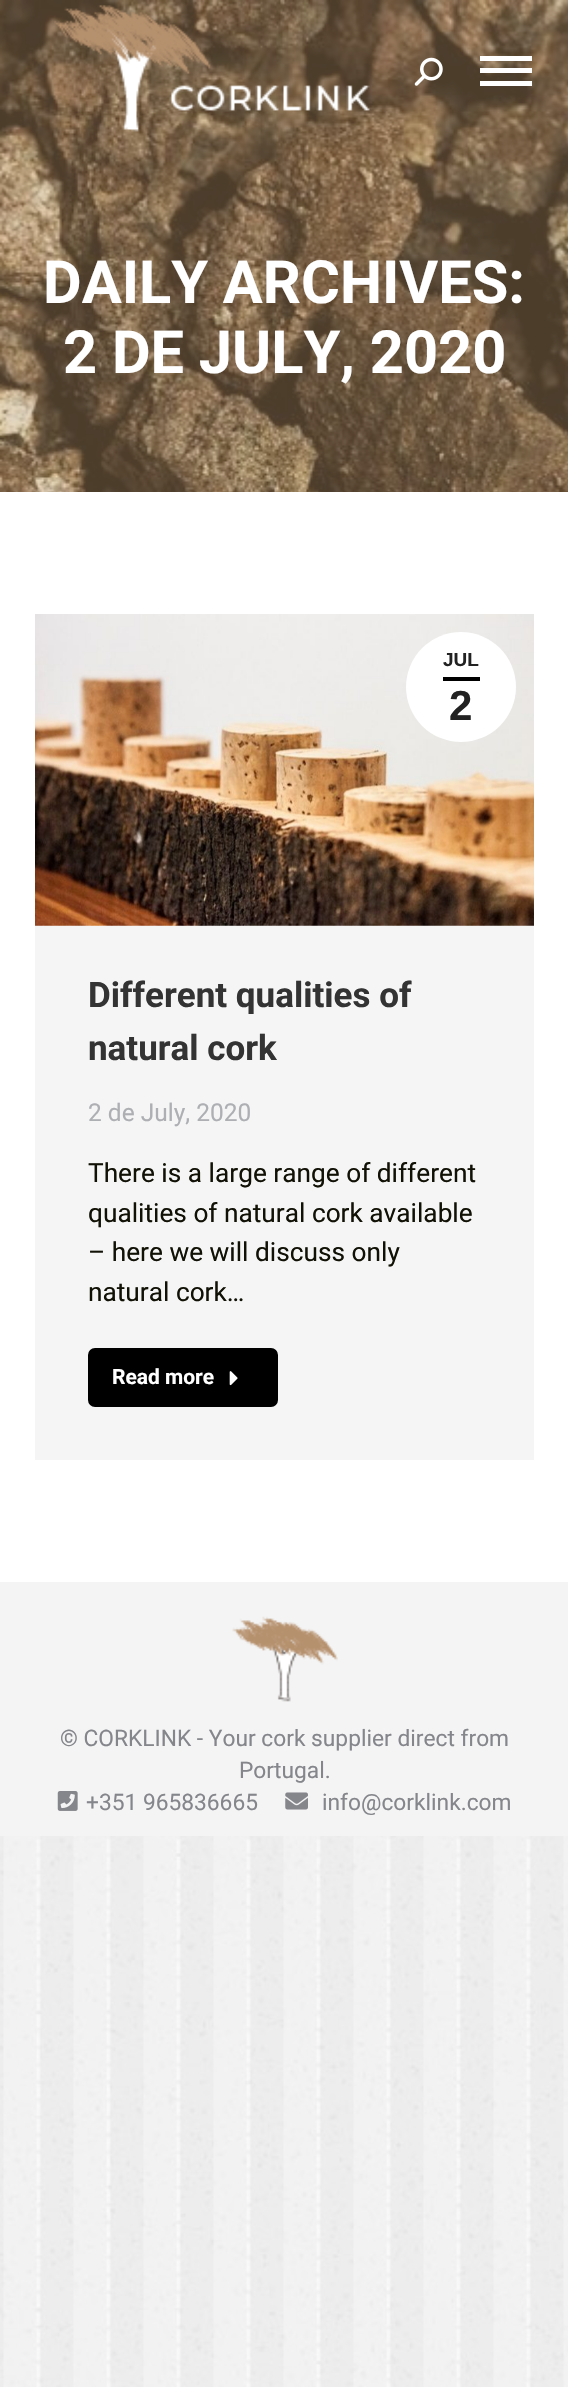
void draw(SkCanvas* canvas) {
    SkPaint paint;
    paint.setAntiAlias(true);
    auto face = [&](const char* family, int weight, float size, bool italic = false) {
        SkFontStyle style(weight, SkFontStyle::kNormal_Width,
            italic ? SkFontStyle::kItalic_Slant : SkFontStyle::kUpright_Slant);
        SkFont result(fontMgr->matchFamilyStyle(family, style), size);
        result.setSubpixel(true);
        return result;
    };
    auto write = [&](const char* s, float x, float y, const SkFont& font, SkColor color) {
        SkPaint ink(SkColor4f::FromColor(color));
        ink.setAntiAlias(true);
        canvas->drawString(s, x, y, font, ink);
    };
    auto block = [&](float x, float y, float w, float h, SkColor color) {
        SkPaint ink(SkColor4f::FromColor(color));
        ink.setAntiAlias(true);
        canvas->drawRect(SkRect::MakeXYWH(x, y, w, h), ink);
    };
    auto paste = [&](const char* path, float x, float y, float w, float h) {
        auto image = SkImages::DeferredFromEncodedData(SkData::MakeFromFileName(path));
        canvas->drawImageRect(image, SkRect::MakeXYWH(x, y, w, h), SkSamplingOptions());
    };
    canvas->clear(SK_ColorWHITE);
    paste("pic1.png", 0, 1836, 568, 551);
    paste("pic4.png", 0, 0, 568, 492);
    paste("pic2.png", 54, 5, 316, 127);
    paste("pic3.png", 414, 57, 29, 29);
    block(480, 56, 52, 5, SK_ColorWHITE);
    block(480, 68, 52, 5, SK_ColorWHITE);
    block(480, 81, 52, 5, SK_ColorWHITE);
    auto kFont1 = face("Roboto", 700, 59.5f);
    write("DAILY ARCHIVES:", 43, 303, kFont1, SK_ColorWHITE);
    write("2 DE JULY, 2020", 63, 373, kFont1, SK_ColorWHITE);
    block(35, 925, 499, 535, SkColorSetRGB(245, 245, 245));
    paste("pic5.png", 35, 614, 499, 312);
    paint.setColor(SK_ColorWHITE);
    canvas->drawCircle(461, 687, 55, paint);
    auto kFont2 = face("Liberation Sans", 700, 19);
    write("JUL", 443, 666, kFont2, SkColorSetRGB(34, 34, 34));
    block(443, 677, 37, 4, SK_ColorBLACK);
    auto kFont3 = face("Liberation Sans", 700, 42);
    write("2", 449, 720, kFont3, SkColorSetRGB(34, 34, 34));
    auto kFont4 = face("Roboto", 700, 35);
    write("Different qualities of", 88, 1007, kFont4, SkColorSetRGB(51, 51, 51));
    write("natural cork", 88, 1060, kFont4, SkColorSetRGB(51, 51, 51));
    auto kFont5 = face("Roboto", 400, 24.5f);
    write("2 de July, 2020", 88, 1121, kFont5, SkColorSetRGB(173, 175, 179));
    auto kFont6 = face("Roboto", 400, 26.25f);
    write("There is a large range of different", 88, 1182, kFont6, SkColorSetRGB(17, 17, 6));
    write("qualities of natural cork available", 88, 1222, kFont6, SkColorSetRGB(17, 17, 6));
    write("– here we will discuss only", 88, 1261, kFont6, SkColorSetRGB(17, 17, 6));
    write("natural cork…", 88, 1301, kFont6, SkColorSetRGB(17, 17, 6));
    paint.setColor(SK_ColorBLACK);
    canvas->drawRoundRect(SkRect::MakeXYWH(90, 1350, 186, 55), 5, 5, paint);
    paint.setStyle(SkPaint::kStroke_Style);
    paint.setStrokeWidth(4);
    canvas->drawRoundRect(SkRect::MakeXYWH(90, 1350, 186, 55), 5, 5, paint);
    auto kFont7 = face("Roboto", 700, 21);
    write("Read more", 112, 1384, kFont7, SK_ColorWHITE);
    paste("pic6.png", 229, 1371, 9, 15);
    block(0, 1582, 568, 254, SkColorSetRGB(244, 244, 244));
    paste("pic7.png", 232, 1616, 106, 86);
    auto kFont8 = face("Roboto", 400, 22.75f);
    write("© CORKLINK - Your cork supplier direct from", 60, 1746, kFont8, SkColorSetRGB(133, 134, 140));
    write("Portugal.", 239, 1778, kFont8, SkColorSetRGB(133, 134, 140));
    paste("pic8.png", 57, 1791, 21, 20);
    write("+351 965836665", 86, 1810, kFont8, SkColorSetRGB(133, 134, 140));
    paste("pic9.png", 285, 1792, 23, 18);
    write("info@corklink.com", 322, 1810, kFont8, SkColorSetRGB(133, 134, 140));
}
